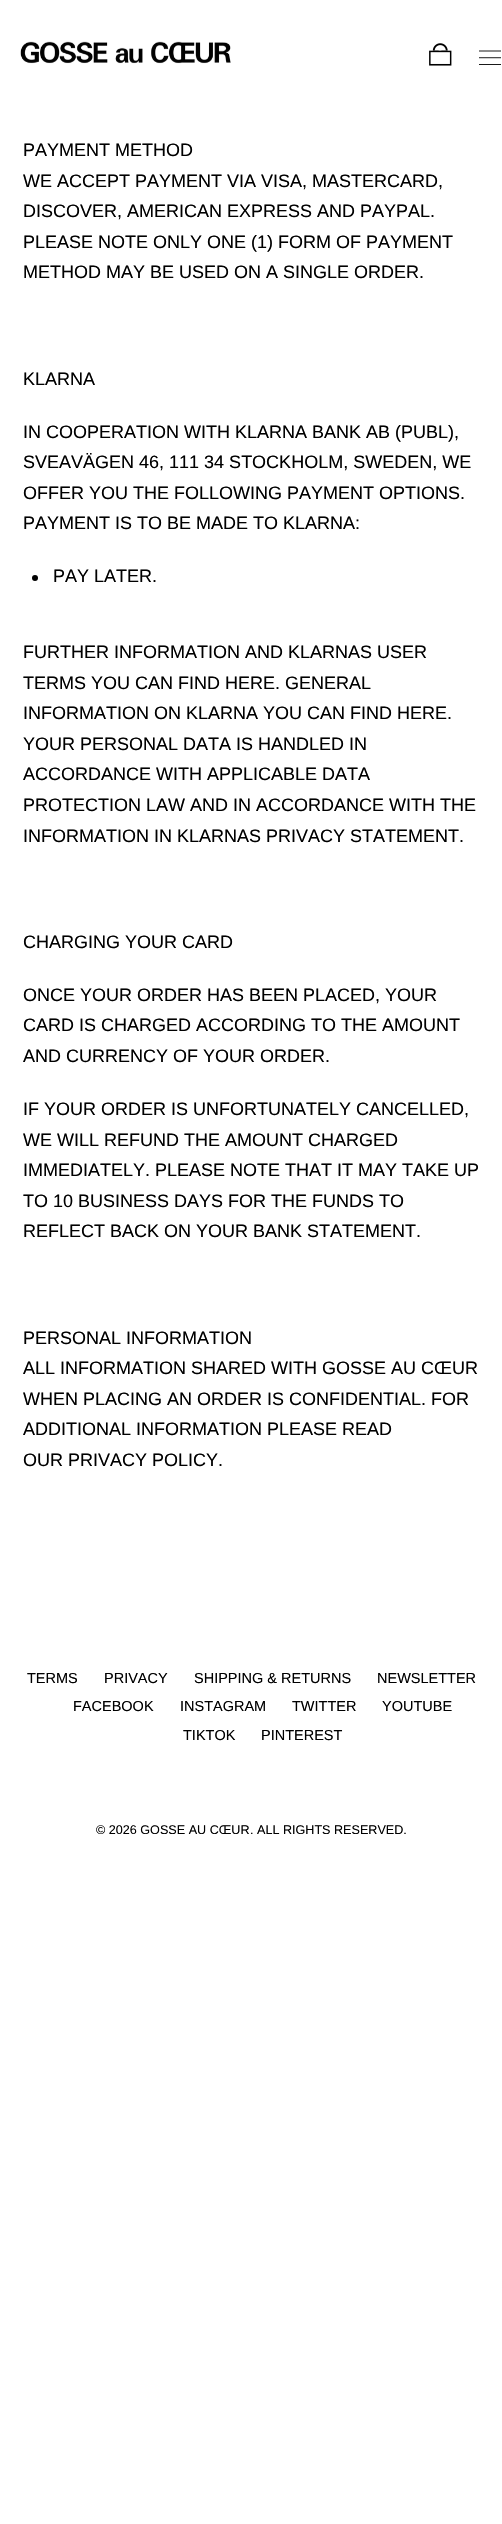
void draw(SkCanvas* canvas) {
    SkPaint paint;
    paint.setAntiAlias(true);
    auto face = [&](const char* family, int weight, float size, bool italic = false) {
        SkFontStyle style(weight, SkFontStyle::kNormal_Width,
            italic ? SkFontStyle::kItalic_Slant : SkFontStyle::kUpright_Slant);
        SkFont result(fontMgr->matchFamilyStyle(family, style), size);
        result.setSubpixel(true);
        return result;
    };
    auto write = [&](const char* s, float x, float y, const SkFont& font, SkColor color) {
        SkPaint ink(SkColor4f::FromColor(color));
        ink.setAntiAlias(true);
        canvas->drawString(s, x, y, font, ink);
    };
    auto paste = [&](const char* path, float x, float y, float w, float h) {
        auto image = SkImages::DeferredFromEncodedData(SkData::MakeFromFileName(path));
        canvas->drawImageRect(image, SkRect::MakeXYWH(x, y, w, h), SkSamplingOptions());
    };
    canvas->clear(SK_ColorWHITE);
    paste("pic1.png", 20, 41, 211, 23);
    paste("pic2.png", 429, 43, 23, 23);
    paste("pic3.png", 479, 50, 22, 15);
    auto kFont1 = face("Liberation Sans", 400, 18);
    write("PAYMENT METHOD", 23, 156, kFont1, SK_ColorBLACK);
    write("WE ACCEPT PAYMENT VIA VISA, MASTERCARD,", 23, 187, kFont1, SK_ColorBLACK);
    write("DISCOVER, AMERICAN EXPRESS AND PAYPAL.", 23, 217, kFont1, SK_ColorBLACK);
    write("PLEASE NOTE ONLY ONE (1) FORM OF PAYMENT", 23, 248, kFont1, SK_ColorBLACK);
    write("METHOD MAY BE USED ON A SINGLE ORDER.", 23, 278, kFont1, SK_ColorBLACK);
    write("KLARNA", 23, 385, kFont1, SK_ColorBLACK);
    write("IN COOPERATION WITH KLARNA BANK AB (PUBL),", 23, 438, kFont1, SK_ColorBLACK);
    write("SVEAVÄGEN 46, 111 34 STOCKHOLM, SWEDEN, WE", 23, 468, kFont1, SK_ColorBLACK);
    write("OFFER YOU THE FOLLOWING PAYMENT OPTIONS.", 23, 499, kFont1, SK_ColorBLACK);
    write("PAYMENT IS TO BE MADE TO KLARNA:", 23, 529, kFont1, SK_ColorBLACK);
    paint.setColor(SK_ColorBLACK);
    canvas->drawCircle(35, 578, 3, paint);
    write("PAY LATER.", 53, 582, kFont1, SK_ColorBLACK);
    write("FURTHER INFORMATION AND KLARNAS USER", 23, 658, kFont1, SK_ColorBLACK);
    write("TERMS YOU CAN FIND HERE. GENERAL", 23, 689, kFont1, SK_ColorBLACK);
    write("INFORMATION ON KLARNA YOU CAN FIND HERE.", 23, 719, kFont1, SK_ColorBLACK);
    write("YOUR PERSONAL DATA IS HANDLED IN", 23, 750, kFont1, SK_ColorBLACK);
    write("ACCORDANCE WITH APPLICABLE DATA", 23, 780, kFont1, SK_ColorBLACK);
    write("PROTECTION LAW AND IN ACCORDANCE WITH THE", 23, 811, kFont1, SK_ColorBLACK);
    write("INFORMATION IN KLARNAS PRIVACY STATEMENT.", 23, 842, kFont1, SK_ColorBLACK);
    write("CHARGING YOUR CARD", 23, 948, kFont1, SK_ColorBLACK);
    write("ONCE YOUR ORDER HAS BEEN PLACED, YOUR", 23, 1001, kFont1, SK_ColorBLACK);
    write("CARD IS CHARGED ACCORDING TO THE AMOUNT", 23, 1031, kFont1, SK_ColorBLACK);
    write("AND CURRENCY OF YOUR ORDER.", 23, 1062, kFont1, SK_ColorBLACK);
    write("IF YOUR ORDER IS UNFORTUNATELY CANCELLED,", 23, 1115, kFont1, SK_ColorBLACK);
    write("WE WILL REFUND THE AMOUNT CHARGED", 23, 1146, kFont1, SK_ColorBLACK);
    write("IMMEDIATELY. PLEASE NOTE THAT IT MAY TAKE UP", 23, 1176, kFont1, SK_ColorBLACK);
    write("TO 10 BUSINESS DAYS FOR THE FUNDS TO", 23, 1207, kFont1, SK_ColorBLACK);
    write("REFLECT BACK ON YOUR BANK STATEMENT.", 23, 1237, kFont1, SK_ColorBLACK);
    write("PERSONAL INFORMATION", 23, 1344, kFont1, SK_ColorBLACK);
    write("ALL INFORMATION SHARED WITH GOSSE AU CŒUR", 23, 1374, kFont1, SK_ColorBLACK);
    write("WHEN PLACING AN ORDER IS CONFIDENTIAL. FOR", 23, 1405, kFont1, SK_ColorBLACK);
    write("ADDITIONAL INFORMATION PLEASE READ", 23, 1435, kFont1, SK_ColorBLACK);
    write("OUR PRIVACY POLICY.", 23, 1466, kFont1, SK_ColorBLACK);
    auto kFont2 = face("Liberation Sans", 400, 14.5f);
    write("TERMS", 27, 1683, kFont2, SK_ColorBLACK);
    write("PRIVACY", 104, 1683, kFont2, SK_ColorBLACK);
    write("SHIPPING & RETURNS", 194, 1683, kFont2, SK_ColorBLACK);
    write("NEWSLETTER", 377, 1683, kFont2, SK_ColorBLACK);
    write("FACEBOOK", 73, 1711, kFont2, SK_ColorBLACK);
    write("INSTAGRAM", 180, 1711, kFont2, SK_ColorBLACK);
    write("TWITTER", 292, 1711, kFont2, SK_ColorBLACK);
    write("YOUTUBE", 382, 1711, kFont2, SK_ColorBLACK);
    write("TIKTOK", 183, 1740, kFont2, SK_ColorBLACK);
    write("PINTEREST", 261, 1740, kFont2, SK_ColorBLACK);
    auto kFont3 = face("Liberation Sans", 400, 12.6f);
    write("© 2026 GOSSE AU CŒUR", 96, 1834, kFont3, SK_ColorBLACK);
    write(". ALL RIGHTS RESERVED.", 250, 1834, kFont3, SK_ColorBLACK);
}
